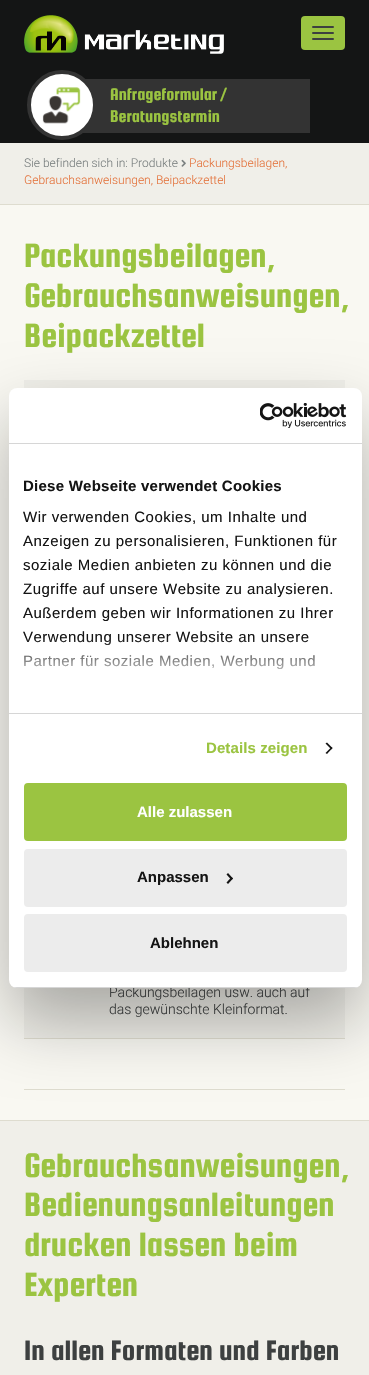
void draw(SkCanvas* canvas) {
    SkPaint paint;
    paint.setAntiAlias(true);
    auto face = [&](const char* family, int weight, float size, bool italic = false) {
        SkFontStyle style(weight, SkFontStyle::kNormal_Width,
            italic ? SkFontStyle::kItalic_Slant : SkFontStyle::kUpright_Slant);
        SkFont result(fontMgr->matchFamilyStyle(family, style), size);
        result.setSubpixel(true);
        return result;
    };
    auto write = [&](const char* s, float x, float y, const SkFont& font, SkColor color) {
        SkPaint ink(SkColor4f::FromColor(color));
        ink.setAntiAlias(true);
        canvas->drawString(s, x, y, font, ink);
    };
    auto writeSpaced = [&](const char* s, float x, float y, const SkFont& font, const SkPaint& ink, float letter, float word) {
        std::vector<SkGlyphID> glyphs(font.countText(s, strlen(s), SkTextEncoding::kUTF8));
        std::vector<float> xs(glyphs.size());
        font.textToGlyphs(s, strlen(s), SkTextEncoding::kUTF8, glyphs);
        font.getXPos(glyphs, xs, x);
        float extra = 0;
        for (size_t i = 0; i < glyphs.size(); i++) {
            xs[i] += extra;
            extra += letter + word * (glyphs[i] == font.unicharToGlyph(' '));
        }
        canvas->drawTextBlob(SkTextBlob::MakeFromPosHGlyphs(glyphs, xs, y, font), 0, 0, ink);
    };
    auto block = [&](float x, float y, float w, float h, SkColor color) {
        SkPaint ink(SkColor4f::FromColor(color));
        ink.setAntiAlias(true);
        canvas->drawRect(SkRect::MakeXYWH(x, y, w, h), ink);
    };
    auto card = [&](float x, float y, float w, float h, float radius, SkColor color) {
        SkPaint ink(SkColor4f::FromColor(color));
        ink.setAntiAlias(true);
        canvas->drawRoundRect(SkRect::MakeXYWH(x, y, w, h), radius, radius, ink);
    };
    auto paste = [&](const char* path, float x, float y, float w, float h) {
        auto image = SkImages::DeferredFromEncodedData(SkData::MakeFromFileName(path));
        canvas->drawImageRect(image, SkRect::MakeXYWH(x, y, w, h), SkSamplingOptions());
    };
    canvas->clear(SkColorSetRGB(240, 239, 233));
    block(0, 0, 369, 143, SkColorSetRGB(20, 21, 21));
    paste("pic1.png", 24, 15, 200, 39);
    card(301, 16, 44, 34, 4, SkColorSetRGB(155, 196, 65));
    card(312, 26, 22, 2, 1, SkColorSetRGB(61, 64, 64));
    card(312, 32, 22, 2, 1, SkColorSetRGB(61, 64, 64));
    card(312, 38, 22, 2, 1, SkColorSetRGB(61, 64, 64));
    block(83, 79, 227, 54, SkColorSetRGB(51, 51, 51));
    paint.setColor(SK_ColorWHITE);
    canvas->drawCircle(62, 105, 33, paint);
    paint.setStyle(SkPaint::kStroke_Style);
    paint.setStrokeWidth(4);
    paint.setColor(SkColorSetRGB(51, 51, 51));
    canvas->drawCircle(62, 105, 33, paint);
    paste("pic2.png", 42, 87, 39, 37);
    auto kFont1 = face("Squada One", 400, 18);
    write("Anfrageformular /", 110, 100, kFont1, SkColorSetRGB(155, 196, 65));
    write("Beratungstermin", 110, 122, kFont1, SkColorSetRGB(155, 196, 65));
    block(0, 204, 369, 1, SkColorSetRGB(222, 220, 207));
    auto kFont2 = face("Roboto", 300, 12);
    write("Sie befinden sich in: Produkte", 24, 167, kFont2, SkColorSetRGB(121, 127, 127));
    paste("pic3.png", 181, 159, 5, 8);
    write("Packungsbeilagen,", 189, 167, kFont2, SkColorSetRGB(228, 115, 60));
    write("Gebrauchsanweisungen, Beipackzettel", 24, 184, kFont2, SkColorSetRGB(228, 115, 60));
    block(0, 205, 369, 915, SkColorSetRGB(249, 248, 242));
    block(0, 1120, 369, 1, SkColorSetRGB(222, 220, 207));
    block(24, 1089, 321, 1, SkColorSetRGB(222, 220, 207));
    auto kFont3 = face("Squada One", 400, 36);
    write("Packungsbeilagen,", 24, 267, kFont3, SkColorSetRGB(155, 196, 65));
    write("Gebrauchsanweisungen,", 24, 307, kFont3, SkColorSetRGB(155, 196, 65));
    write("Beipackzettel", 24, 347, kFont3, SkColorSetRGB(155, 196, 65));
    block(24, 380, 321, 8, SkColorSetRGB(240, 239, 233));
    block(24, 988, 321, 50, SkColorSetRGB(240, 239, 233));
    block(24, 1038, 321, 1, SkColorSetRGB(222, 220, 207));
    auto kFont4 = face("Roboto", 300, 14);
    write("Packungsbeilagen usw. auch auf", 109, 997, kFont4, SkColorSetRGB(61, 64, 64));
    write("das gewünschte Kleinformat.", 109, 1014, kFont4, SkColorSetRGB(61, 64, 64));
    write("Gebrauchsanweisungen,", 24, 1177, kFont3, SkColorSetRGB(155, 196, 65));
    write("Bedienungsanleitungen", 24, 1216, kFont3, SkColorSetRGB(155, 196, 65));
    write("drucken lassen beim", 24, 1256, kFont3, SkColorSetRGB(155, 196, 65));
    write("Experten", 24, 1296, kFont3, SkColorSetRGB(155, 196, 65));
    auto kFont5 = face("Squada One", 400, 30);
    write("In allen Formaten und Farben", 24, 1360, kFont5, SkColorSetRGB(61, 64, 64));
    paint.setStyle(SkPaint::kFill_Style);
    paint.setColor(SkColorSetARGB(77, 0, 0, 0));
    paint.setMaskFilter(SkMaskFilter::MakeBlur(kNormal_SkBlurStyle, 34));
    canvas->drawRoundRect(SkRect::MakeXYWH(9, 420, 353, 600), 8, 8, paint);
    paint.setMaskFilter(nullptr);
    card(9, 388, 353, 600, 8, SK_ColorWHITE);
    block(9, 443, 353, 1, SkColorSetRGB(214, 214, 214));
    paste("pic4.png", 260, 403, 87, 25);
    block(9, 713, 353, 1, SkColorSetRGB(214, 214, 214));
    auto kFont6 = face("Liberation Sans", 700, 15);
    paint.setColor(SkColorSetRGB(20, 20, 20));
    writeSpaced("Diese Webseite verwendet Cookies", 23, 491, kFont6, paint, 0.25f, 0);
    auto kFont7 = face("Liberation Sans", 400, 15);
    writeSpaced("Wir verwenden Cookies, um Inhalte und", 23, 522, kFont7, paint, 0.5f, 0);
    writeSpaced("Anzeigen zu personalisieren, Funktionen für", 23, 546, kFont7, paint, 0.5f, 0);
    writeSpaced("soziale Medien anbieten zu können und die", 23, 570, kFont7, paint, 0.5f, 0);
    writeSpaced("Zugriffe auf unsere Website zu analysieren.", 23, 594, kFont7, paint, 0.5f, 0);
    writeSpaced("Außerdem geben wir Informationen zu Ihrer", 23, 618, kFont7, paint, 0.5f, 0);
    writeSpaced("Verwendung unserer Website an unsere", 23, 642, kFont7, paint, 0.5f, 0);
    writeSpaced("Partner für soziale Medien, Werbung und", 23, 666, kFont7, paint, 0.5f, 0);
    {
        const SkColor colors[] = {SK_ColorWHITE, SkColorSetARGB(204, 255, 255, 255), SkColorSetARGB(0, 255, 255, 255)};
        const float stops[] = {0, 0.5f, 1};
        const SkPoint ends[] = {{179, 713}, {179, 638}};
        paint.setShader(SkGradientShader::MakeLinear(ends, colors, stops, 3, SkTileMode::kClamp));
        paint.setAlpha(255);
    }
    canvas->drawRect(SkRect::MakeXYWH(24, 639, 291, 31), paint);
    paint.setShader(nullptr);
    paint.setColor(SkColorSetRGB(155, 196, 65));
    writeSpaced("Details zeigen", 206, 753, kFont6, paint, 0.1f, 0);
    paint.setColor(SkColorSetRGB(20, 20, 20));
    canvas->drawPath(SkPathBuilder().moveTo(327, 742.5f).lineTo(332.5f, 748).lineTo(331.5f, 749.5f).lineTo(325.5f, 743.5f).close().detach(), paint);
    canvas->drawPath(SkPathBuilder().moveTo(331.5f, 747).lineTo(332.5f, 748).lineTo(327, 754).lineTo(325.5f, 753).close().detach(), paint);
    canvas->save();
    canvas->clipPath(SkPathBuilder().moveTo(17, 388).lineTo(354, 388).cubicTo(358.5f, 388, 362, 391.5f, 362, 396).lineTo(362, 980).cubicTo(362, 984.5f, 358.5f, 988, 354, 988).lineTo(17, 988).cubicTo(12.5f, 988, 9, 984.5f, 9, 980).lineTo(9, 396).cubicTo(9, 391.5f, 12.5f, 388, 17, 388).close().detach(), true);
    block(9, 987, 353, 1, SkColorSetRGB(214, 214, 214));
    canvas->restore();
    paint.setColor(SkColorSetRGB(155, 196, 65));
    canvas->drawRoundRect(SkRect::MakeXYWH(25, 784, 321, 56), 3, 3, paint);
    paint.setStyle(SkPaint::kStroke_Style);
    paint.setStrokeWidth(2);
    canvas->drawRoundRect(SkRect::MakeXYWH(25, 784, 321, 56), 3, 3, paint);
    write("Alle zulassen", 137, 817, kFont6, SK_ColorWHITE);
    paint.setStyle(SkPaint::kFill_Style);
    paint.setColor(SkColorSetRGB(236, 236, 236));
    canvas->drawRoundRect(SkRect::MakeXYWH(25, 850, 321, 56), 3, 3, paint);
    paint.setStyle(SkPaint::kStroke_Style);
    canvas->drawRoundRect(SkRect::MakeXYWH(25, 850, 321, 56), 3, 3, paint);
    write("Anpassen", 137, 882, kFont6, SkColorSetRGB(20, 20, 20));
    paint.setStyle(SkPaint::kFill_Style);
    paint.setColor(SkColorSetRGB(20, 20, 20));
    canvas->drawPath(SkPathBuilder().moveTo(228, 873).lineTo(233, 878.5f).lineTo(231.5f, 880).lineTo(226.5f, 874.5f).close().detach(), paint);
    canvas->drawPath(SkPathBuilder().moveTo(231.5f, 877).lineTo(233, 878.5f).lineTo(228, 884).lineTo(226.5f, 882.5f).close().detach(), paint);
    paint.setColor(SkColorSetRGB(236, 236, 236));
    canvas->drawRoundRect(SkRect::MakeXYWH(25, 915, 321, 56), 3, 3, paint);
    paint.setStyle(SkPaint::kStroke_Style);
    canvas->drawRoundRect(SkRect::MakeXYWH(25, 915, 321, 56), 3, 3, paint);
    write("Ablehnen", 150, 948, kFont6, SkColorSetRGB(20, 20, 20));
}
